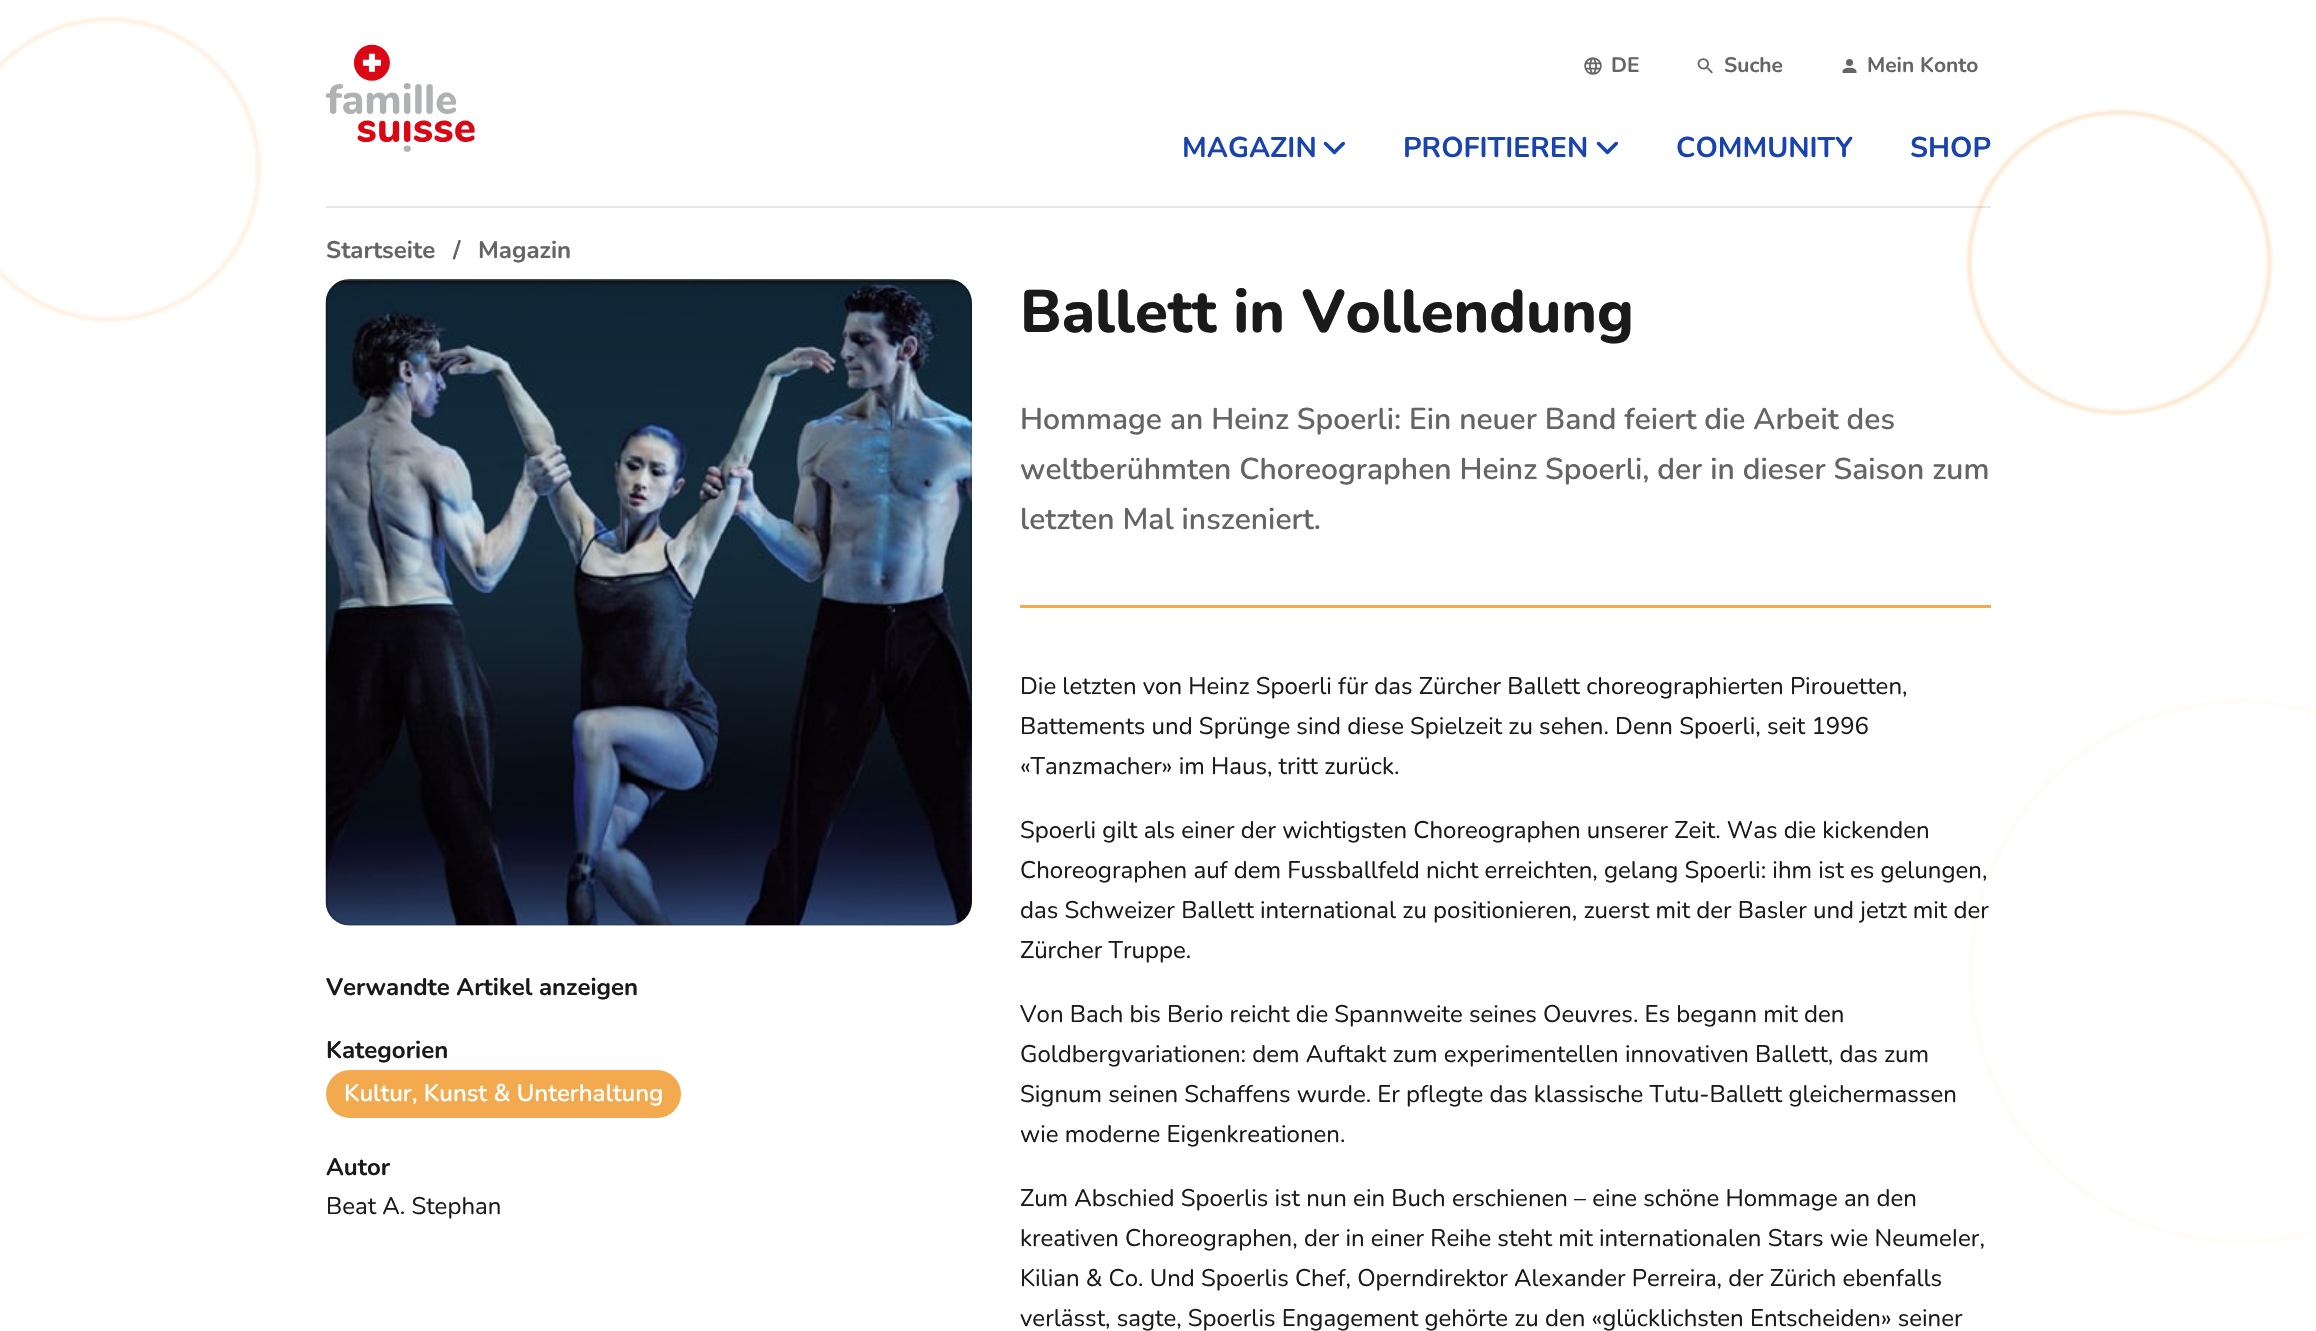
void draw(SkCanvas* canvas) {
    SkPaint paint;
    paint.setAntiAlias(true);
    auto face = [&](const char* family, int weight, float size, bool italic = false) {
        SkFontStyle style(weight, SkFontStyle::kNormal_Width,
            italic ? SkFontStyle::kItalic_Slant : SkFontStyle::kUpright_Slant);
        SkFont result(fontMgr->matchFamilyStyle(family, style), size);
        result.setSubpixel(true);
        return result;
    };
    auto write = [&](const char* s, float x, float y, const SkFont& font, SkColor color) {
        SkPaint ink(SkColor4f::FromColor(color));
        ink.setAntiAlias(true);
        canvas->drawString(s, x, y, font, ink);
    };
    auto block = [&](float x, float y, float w, float h, SkColor color) {
        SkPaint ink(SkColor4f::FromColor(color));
        ink.setAntiAlias(true);
        canvas->drawRect(SkRect::MakeXYWH(x, y, w, h), ink);
    };
    auto card = [&](float x, float y, float w, float h, float radius, SkColor color) {
        SkPaint ink(SkColor4f::FromColor(color));
        ink.setAntiAlias(true);
        canvas->drawRoundRect(SkRect::MakeXYWH(x, y, w, h), radius, radius, ink);
    };
    auto paste = [&](const char* path, float x, float y, float w, float h) {
        auto image = SkImages::DeferredFromEncodedData(SkData::MakeFromFileName(path));
        canvas->drawImageRect(image, SkRect::MakeXYWH(x, y, w, h), SkSamplingOptions());
    };
    canvas->clear(SK_ColorWHITE);
    paste("pic1.png", 0, 15, 2316, 1229);
    block(326, 206, 1665, 2, SkColorSetARGB(26, 26, 26, 26));
    paste("pic2.png", 325, 44, 150, 108);
    paste("pic3.png", 1584, 57, 18, 18);
    auto kFont1 = face("Nunito", 700, 21);
    write("DE", 1611, 72, kFont1, SkColorSetRGB(101, 101, 101));
    paste("pic4.png", 1697, 58, 16, 16);
    write("Suche", 1724, 72, kFont1, SkColorSetRGB(101, 101, 101));
    paste("pic5.png", 1842, 59, 15, 14);
    write("Mein Konto", 1867, 72, kFont1, SkColorSetRGB(101, 101, 101));
    auto kFont2 = face("Nunito", 700, 28.5f);
    write("MAGAZIN", 1182, 157, kFont2, SkColorSetRGB(25, 68, 175));
    paste("pic6.png", 1323, 141, 22, 14);
    write("PROFITIEREN", 1403, 157, kFont2, SkColorSetRGB(25, 68, 175));
    paste("pic6.png", 1596, 141, 22, 14);
    write("COMMUNITY", 1676, 157, kFont2, SkColorSetRGB(25, 68, 175));
    write("SHOP", 1910, 157, kFont2, SkColorSetRGB(25, 68, 175));
    auto kFont3 = face("Nunito", 700, 24);
    write("Startseite", 326, 258, kFont3, SkColorSetRGB(101, 101, 101));
    write("/", 453, 258, kFont3, SkColorSetRGB(101, 101, 101));
    write("Magazin", 478, 258, kFont3, SkColorSetRGB(101, 101, 101));
    paste("pic7.png", 325, 279, 647, 647);
    paint.setStyle(SkPaint::kStroke_Style);
    paint.setStrokeWidth(2);
    paint.setColor(SkColorSetARGB(38, 0, 0, 0));
    canvas->drawRoundRect(SkRect::MakeXYWH(327, 280, 644, 645), 23, 23, paint);
    auto kFont4 = face("Nunito", 800, 60);
    write("Ballett in Vollendung", 1020, 332, kFont4, SkColorSetRGB(26, 26, 26));
    write("Verwandte Artikel anzeigen", 326, 995, kFont3, SkColorSetRGB(26, 26, 26));
    write("Kategorien", 326, 1058, kFont3, SkColorSetRGB(26, 26, 26));
    card(326, 1070, 355, 48, 24, SkColorSetRGB(243, 170, 79));
    auto kFont5 = face("Nunito", 600, 24);
    write("Kultur, Kunst & Unterhaltung", 344, 1101, kFont5, SK_ColorWHITE);
    write("Autor", 326, 1175, kFont3, SkColorSetRGB(26, 26, 26));
    auto kFont6 = face("Nunito", 400, 24);
    write("Beat A. Stephan", 326, 1214, kFont6, SkColorSetRGB(26, 26, 26));
    auto kFont7 = face("Nunito", 600, 30);
    write("Hommage an Heinz Spoerli: Ein neuer Band feiert die Arbeit des", 1020, 429, kFont7, SkColorSetRGB(101, 101, 101));
    write("weltberühmten Choreographen Heinz Spoerli, der in dieser Saison zum", 1020, 479, kFont7, SkColorSetRGB(101, 101, 101));
    write("letzten Mal inszeniert.", 1020, 529, kFont7, SkColorSetRGB(101, 101, 101));
    block(1020, 605, 971, 3, SkColorSetRGB(243, 170, 79));
    write("Die letzten von Heinz Spoerli für das Zürcher Ballett choreographierten Pirouetten,", 1020, 694, kFont6, SkColorSetRGB(26, 26, 26));
    write("Battements und Sprünge sind diese Spielzeit zu sehen. Denn Spoerli, seit 1996", 1020, 734, kFont6, SkColorSetRGB(26, 26, 26));
    write("«Tanzmacher» im Haus, tritt zurück.", 1020, 774, kFont6, SkColorSetRGB(26, 26, 26));
    write("Spoerli gilt als einer der wichtigsten Choreographen unserer Zeit. Was die kickenden", 1020, 838, kFont6, SkColorSetRGB(26, 26, 26));
    write("Choreographen auf dem Fussballfeld nicht erreichten, gelang Spoerli: ihm ist es gelungen,", 1020, 878, kFont6, SkColorSetRGB(26, 26, 26));
    write("das Schweizer Ballett international zu positionieren, zuerst mit der Basler und jetzt mit der", 1020, 918, kFont6, SkColorSetRGB(26, 26, 26));
    write("Zürcher Truppe.", 1020, 958, kFont6, SkColorSetRGB(26, 26, 26));
    write("Von Bach bis Berio reicht die Spannweite seines Oeuvres. Es begann mit den", 1020, 1022, kFont6, SkColorSetRGB(26, 26, 26));
    write("Goldbergvariationen: dem Auftakt zum experimentellen innovativen Ballett, das zum", 1020, 1062, kFont6, SkColorSetRGB(26, 26, 26));
    write("Signum seinen Schaffens wurde. Er pflegte das klassische Tutu-Ballett gleichermassen", 1020, 1102, kFont6, SkColorSetRGB(26, 26, 26));
    write("wie moderne Eigenkreationen.", 1020, 1142, kFont6, SkColorSetRGB(26, 26, 26));
    write("Zum Abschied Spoerlis ist nun ein Buch erschienen – eine schöne Hommage an den", 1020, 1206, kFont6, SkColorSetRGB(26, 26, 26));
    write("kreativen Choreographen, der in einer Reihe steht mit internationalen Stars wie NeumeIer,", 1020, 1246, kFont6, SkColorSetRGB(26, 26, 26));
    write("Kilian & Co. Und Spoerlis Chef, Operndirektor Alexander Perreira, der Zürich ebenfalls", 1020, 1286, kFont6, SkColorSetRGB(26, 26, 26));
    write("verlässt, sagte, Spoerlis Engagement gehörte zu den «glücklichsten Entscheiden» seiner", 1020, 1326, kFont6, SkColorSetRGB(26, 26, 26));
}
